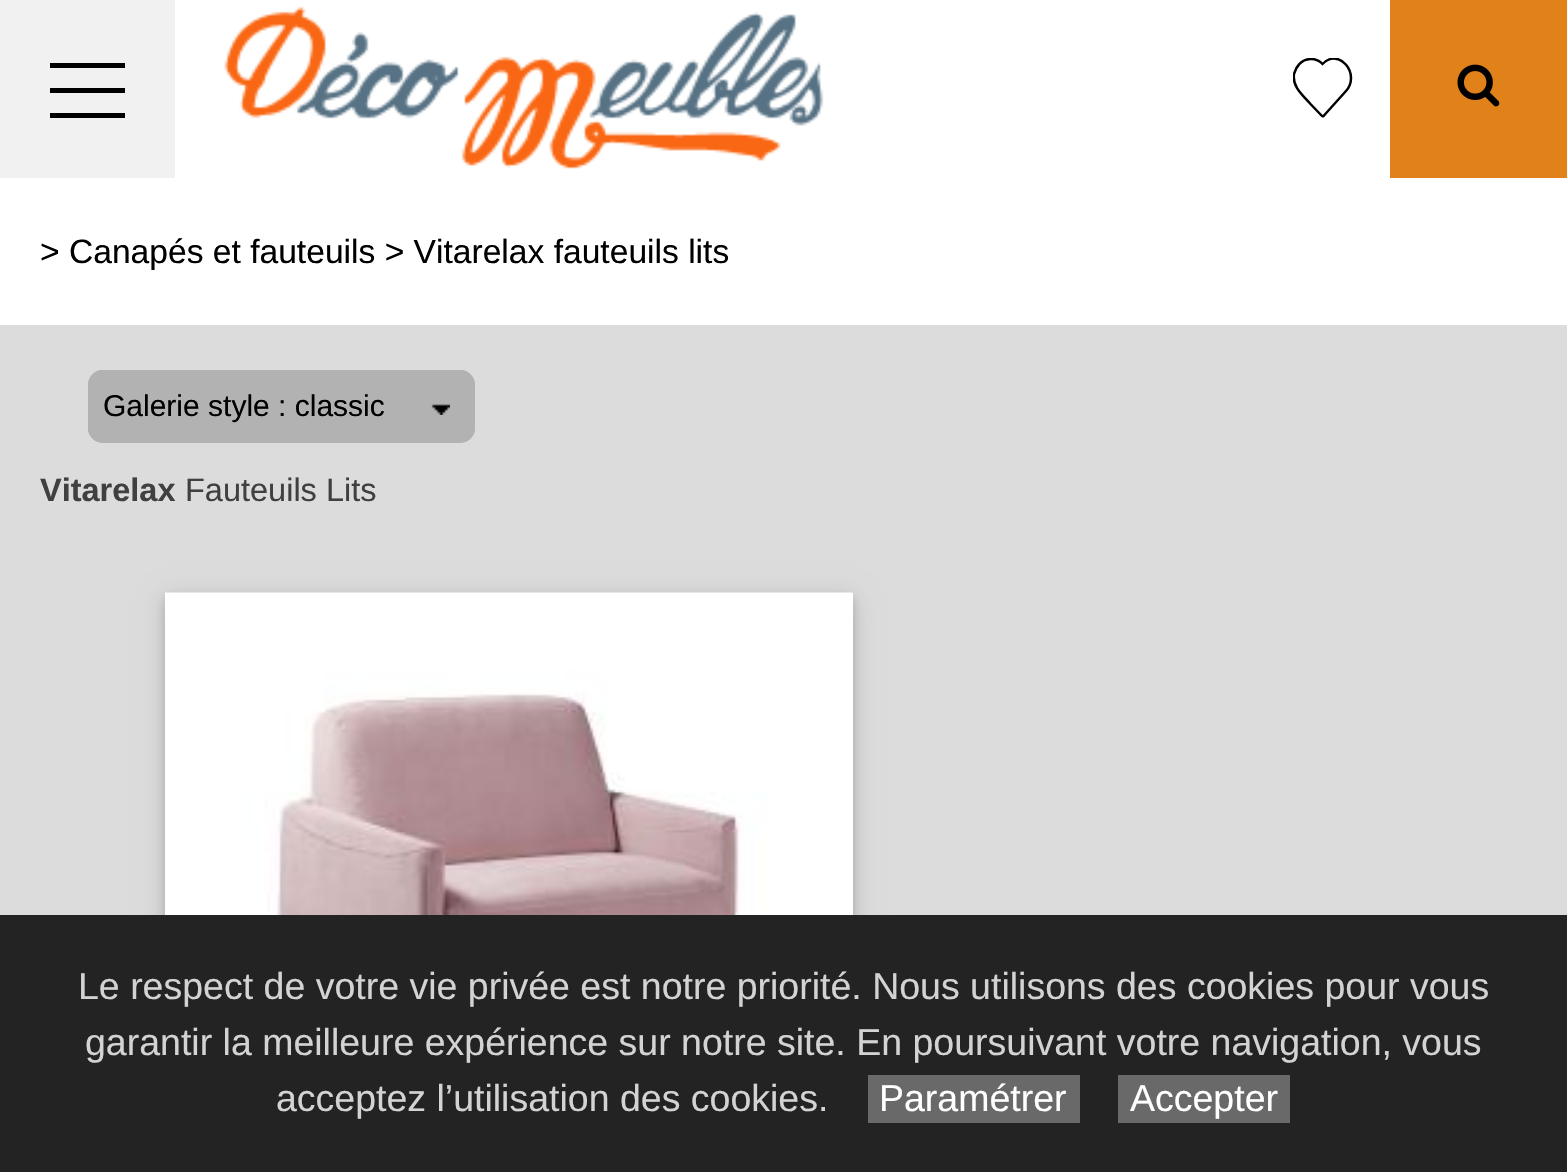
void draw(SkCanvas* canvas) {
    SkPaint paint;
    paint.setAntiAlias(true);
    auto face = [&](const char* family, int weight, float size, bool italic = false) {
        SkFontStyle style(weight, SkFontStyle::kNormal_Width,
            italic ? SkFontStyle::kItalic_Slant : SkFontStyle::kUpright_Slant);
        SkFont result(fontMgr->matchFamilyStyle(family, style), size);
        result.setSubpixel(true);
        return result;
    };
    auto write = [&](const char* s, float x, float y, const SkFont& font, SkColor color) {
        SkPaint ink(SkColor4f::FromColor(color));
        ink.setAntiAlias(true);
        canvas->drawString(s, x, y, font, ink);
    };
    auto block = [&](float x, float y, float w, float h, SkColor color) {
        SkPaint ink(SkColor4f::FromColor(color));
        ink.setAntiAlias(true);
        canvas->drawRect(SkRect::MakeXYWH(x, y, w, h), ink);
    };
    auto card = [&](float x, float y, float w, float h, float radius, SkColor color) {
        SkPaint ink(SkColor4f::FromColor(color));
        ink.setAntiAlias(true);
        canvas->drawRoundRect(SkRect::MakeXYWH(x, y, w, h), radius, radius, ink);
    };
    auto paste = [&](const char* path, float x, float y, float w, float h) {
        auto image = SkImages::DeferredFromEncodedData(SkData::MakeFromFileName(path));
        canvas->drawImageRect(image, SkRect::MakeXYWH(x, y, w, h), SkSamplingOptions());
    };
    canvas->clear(SK_ColorWHITE);
    block(0, 0, 175, 178, SkColorSetRGB(241, 241, 241));
    block(50, 63, 75, 5, SK_ColorBLACK);
    block(50, 88, 75, 5, SK_ColorBLACK);
    block(50, 113, 75, 5, SK_ColorBLACK);
    paste("pic1.png", 224, 6, 600, 164);
    canvas->save();
    canvas->clipRect(SkRect::MakeXYWH(1293, 58, 60, 60));
    paint.setStyle(SkPaint::kStroke_Style);
    paint.setStrokeWidth(2.5f);
    paint.setColor(SK_ColorBLACK);
    canvas->drawPath(SkPathBuilder().moveTo(1299, 64.5f).cubicTo(1296.5f, 67, 1295, 70.5f, 1294, 74).cubicTo(1292, 87, 1303, 95.5f, 1310.5f, 104).lineTo(1322, 116).cubicTo(1322.5f, 116.5f, 1323.5f, 116, 1324, 115.5f).lineTo(1346, 91).cubicTo(1361, 74, 1339, 47, 1322.5f, 64).cubicTo(1316, 57, 1305, 57.5f, 1299, 64.5f).close().moveTo(1299, 64.5f).lineTo(1299.5f, 65).moveTo(1299, 64.5f).lineTo(1299.5f, 65).detach(), paint);
    canvas->restore();
    block(1390, 0, 177, 178, SkColorSetRGB(224, 129, 25));
    paste("pic2.png", 1457, 64, 43, 43);
    auto kFont1 = face("Liberation Sans", 400, 33.6f);
    write("> Canapés et fauteuils > Vitarelax fauteuils lits", 40, 263, kFont1, SK_ColorBLACK);
    block(0, 325, 1567, 590, SkColorSetRGB(220, 220, 220));
    card(88, 370, 387, 73, 15, SkColorSetRGB(178, 178, 178));
    paste("pic3.png", 431, 404, 19, 11);
    paint.setStrokeWidth(3);
    paint.setColor(SkColorSetRGB(178, 178, 178));
    canvas->drawRoundRect(SkRect::MakeXYWH(89.5f, 371.5f, 384, 70), 13.5f, 13.5f, paint);
    auto kFont2 = face("Liberation Sans", 400, 30);
    write("Galerie style : classic", 103, 416, kFont2, SK_ColorBLACK);
    auto kFont3 = face("Liberation Sans", 700, 32.5f);
    write("Vitarelax", 40, 501, kFont3, SkColorSetRGB(64, 64, 64));
    auto kFont4 = face("Liberation Sans", 400, 32.5f);
    write("Fauteuils Lits", 185, 501, kFont4, SkColorSetRGB(64, 64, 64));
    paint.setStyle(SkPaint::kFill_Style);
    paint.setColor(SkColorSetARGB(31, 0, 0, 0));
    paint.setMaskFilter(SkMaskFilter::MakeBlur(kNormal_SkBlurStyle, 12.5f));
    canvas->drawRect(SkRect::MakeXYWH(165, 598, 688, 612), paint);
    paint.setMaskFilter(nullptr);
    paint.setColor(SkColorSetARGB(41, 0, 0, 0));
    paint.setMaskFilter(SkMaskFilter::MakeBlur(kNormal_SkBlurStyle, 5));
    canvas->drawRect(SkRect::MakeXYWH(165, 598, 688, 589), paint);
    paint.setMaskFilter(nullptr);
    block(852, 593, 1, 322, SK_ColorWHITE);
    paste("pic4.png", 165, 592, 688, 323);
    block(0, 915, 1567, 257, SkColorSetRGB(35, 35, 35));
    auto kFont5 = face("Liberation Sans", 400, 37.5f);
    write("Le respect de votre vie privée est notre priorité. Nous utilisons des cookies pour vous", 78, 999, kFont5, SkColorSetRGB(211, 211, 211));
    write("garantir la meilleure expérience sur notre site. En poursuivant votre navigation, vous", 85, 1055, kFont5, SkColorSetRGB(211, 211, 211));
    write("acceptez l’utilisation des cookies.", 276, 1111, kFont5, SkColorSetRGB(211, 211, 211));
    block(868, 1075, 212, 48, SkColorSetRGB(105, 105, 105));
    write("Paramétrer", 879, 1111, kFont5, SK_ColorWHITE);
    block(1118, 1075, 172, 48, SkColorSetRGB(105, 105, 105));
    write("Accepter", 1130, 1111, kFont5, SK_ColorWHITE);
}
